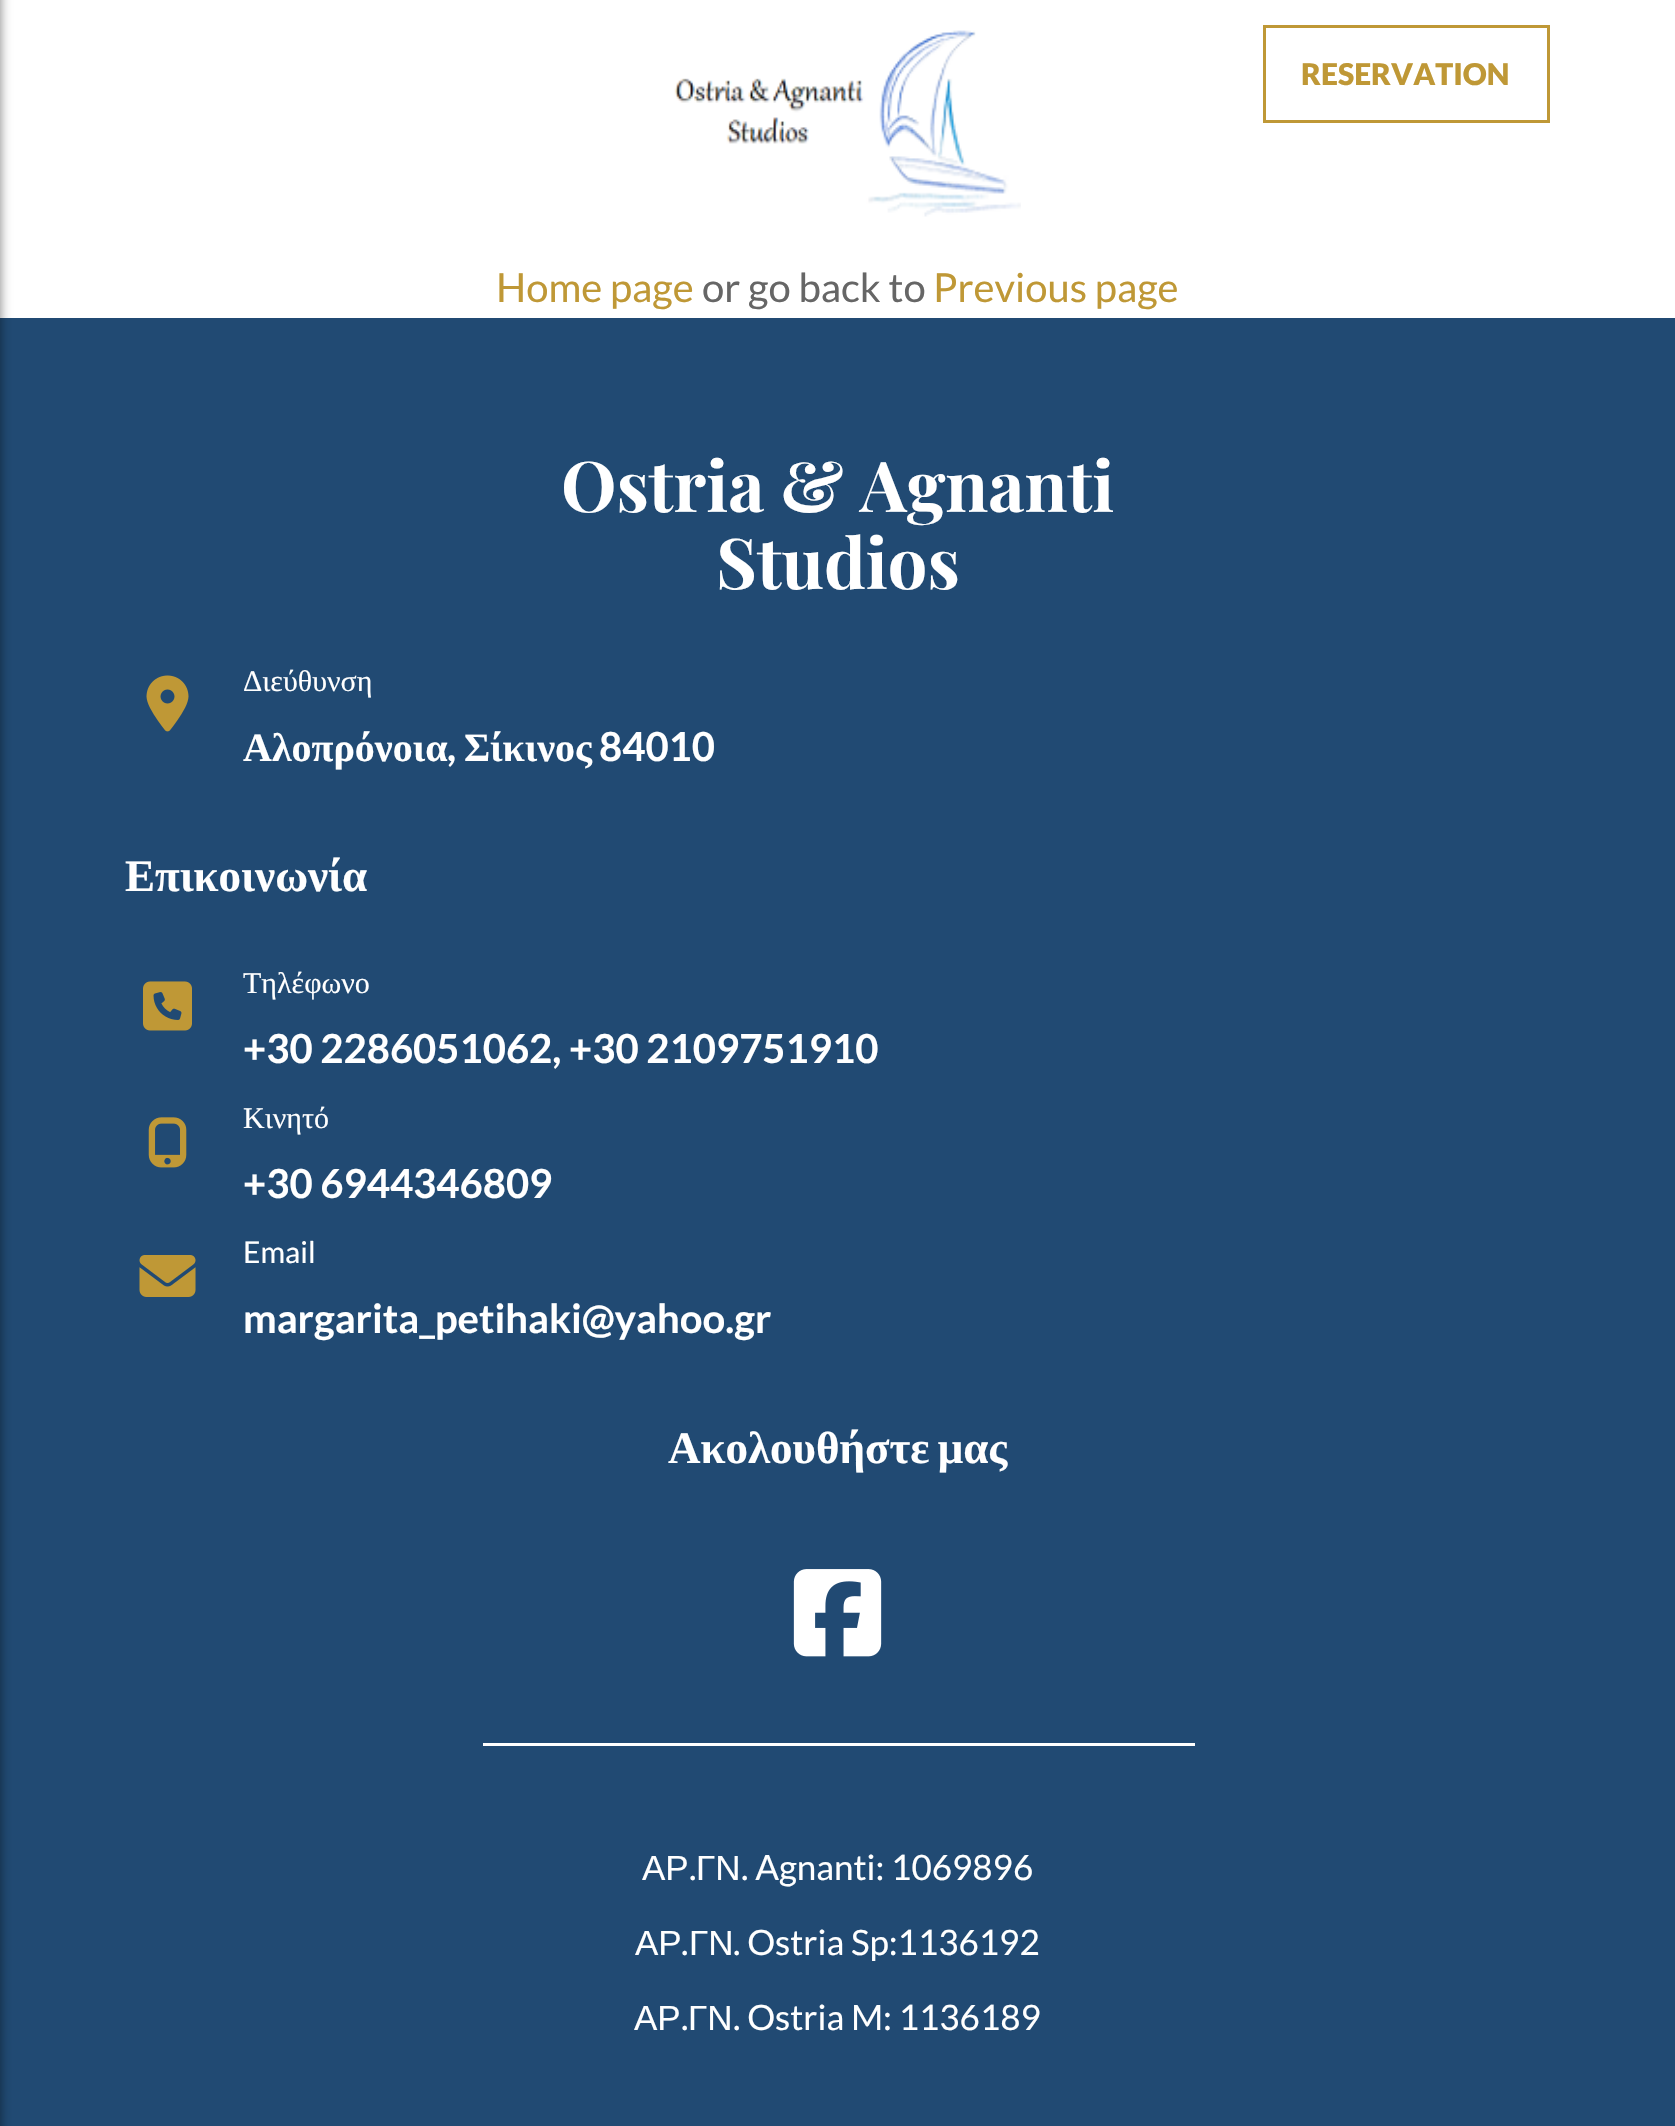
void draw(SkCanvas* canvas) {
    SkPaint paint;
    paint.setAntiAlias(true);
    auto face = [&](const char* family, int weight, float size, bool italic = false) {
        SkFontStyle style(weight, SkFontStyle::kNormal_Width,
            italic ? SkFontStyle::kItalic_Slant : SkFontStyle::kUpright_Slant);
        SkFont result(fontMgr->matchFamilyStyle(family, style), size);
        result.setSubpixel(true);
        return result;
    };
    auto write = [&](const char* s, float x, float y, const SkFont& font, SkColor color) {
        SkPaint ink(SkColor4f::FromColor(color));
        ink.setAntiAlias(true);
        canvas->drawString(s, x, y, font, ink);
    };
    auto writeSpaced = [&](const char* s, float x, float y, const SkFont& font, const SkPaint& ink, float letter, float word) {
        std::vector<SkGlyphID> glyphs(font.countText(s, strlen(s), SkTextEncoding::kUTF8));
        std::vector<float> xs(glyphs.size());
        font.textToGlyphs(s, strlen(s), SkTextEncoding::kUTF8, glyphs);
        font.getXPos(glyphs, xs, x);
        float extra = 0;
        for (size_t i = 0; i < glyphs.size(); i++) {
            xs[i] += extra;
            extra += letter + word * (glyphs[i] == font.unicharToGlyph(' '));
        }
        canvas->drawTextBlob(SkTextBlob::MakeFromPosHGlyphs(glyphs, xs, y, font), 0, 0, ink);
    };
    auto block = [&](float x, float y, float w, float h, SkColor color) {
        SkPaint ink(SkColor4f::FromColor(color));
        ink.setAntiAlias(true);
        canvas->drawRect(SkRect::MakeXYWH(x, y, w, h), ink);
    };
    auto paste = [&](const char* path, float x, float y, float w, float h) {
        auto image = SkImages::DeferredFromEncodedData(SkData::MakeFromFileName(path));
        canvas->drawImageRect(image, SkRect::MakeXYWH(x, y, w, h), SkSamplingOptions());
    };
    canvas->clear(SK_ColorWHITE);
    block(0, 318, 1675, 1808, SkColorSetRGB(33, 74, 115));
    paint.setColor(SkColorSetARGB(128, 0, 0, 0));
    paint.setMaskFilter(SkMaskFilter::MakeBlur(kNormal_SkBlurStyle, 6));
    canvas->drawRect(SkRect::MakeXYWH(-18, -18, 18, 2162), paint);
    paint.setMaskFilter(nullptr);
    paste("pic1.png", 674, 30, 347, 187);
    paint.setStyle(SkPaint::kStroke_Style);
    paint.setStrokeWidth(3);
    paint.setColor(SkColorSetRGB(191, 152, 54));
    canvas->drawRect(SkRect::MakeXYWH(1264.5f, 26.5f, 284, 95), paint);
    auto kFont1 = face("Lato", 900, 30);
    write("RESERVATION", 1301, 85, kFont1, SkColorSetRGB(191, 152, 54));
    auto kFont2 = face("Lato", 400, 40);
    write("Home page", 496, 302, kFont2, SkColorSetRGB(191, 152, 54));
    write("or go back to", 702, 302, kFont2, SkColorSetRGB(102, 102, 102));
    write("Previous page", 933, 302, kFont2, SkColorSetRGB(191, 152, 54));
    auto kFont3 = face("Playfair Display", 700, 70);
    write("Ostria & Agnanti", 561, 512, kFont3, SK_ColorWHITE);
    write("Studios", 716, 589, kFont3, SK_ColorWHITE);
    paste("pic2.png", 146, 675, 43, 57);
    auto kFont4 = face("Liberation Serif", 400, 30);
    write("Διεύθυνση", 243, 691, kFont4, SK_ColorWHITE);
    auto kFont5 = face("Liberation Serif", 700, 40);
    write("Αλοπρόνοια", 243, 761, kFont5, SK_ColorWHITE);
    auto kFont6 = face("Lato", 700, 40);
    write(",", 447, 761, kFont6, SK_ColorWHITE);
    write("Σίκινος", 464, 761, kFont5, SK_ColorWHITE);
    write("84010", 599, 761, kFont6, SK_ColorWHITE);
    auto kFont7 = face("Liberation Serif", 700, 45);
    write("Επικοινωνία", 125, 891, kFont7, SK_ColorWHITE);
    paste("pic3.png", 143, 981, 49, 50);
    write("Τηλέφωνο", 243, 993, kFont4, SK_ColorWHITE);
    write("+30 2286051062, +30 2109751910", 243, 1063, kFont6, SK_ColorWHITE);
    paste("pic4.png", 148, 1117, 39, 51);
    write("Κινητό", 243, 1128, kFont4, SK_ColorWHITE);
    write("+30 6944346809", 243, 1198, kFont6, SK_ColorWHITE);
    paste("pic5.png", 139, 1255, 57, 42);
    auto kFont8 = face("Lato", 400, 30);
    write("Email", 243, 1263, kFont8, SK_ColorWHITE);
    write("margarita_petihaki@yahoo.gr", 243, 1333, kFont6, SK_ColorWHITE);
    paint.setStyle(SkPaint::kFill_Style);
    paint.setColor(SK_ColorWHITE);
    writeSpaced("Ακολουθήστε μας", 668, 1463, kFont7, paint, 0, -3);
    paste("pic6.png", 793, 1569, 89, 88);
    block(483, 1743, 712, 3, SK_ColorWHITE);
    auto kFont9 = face("Liberation Sans", 400, 35);
    write("ΑΡ", 642, 1880, kFont9, SK_ColorWHITE);
    auto kFont10 = face("Lato", 400, 35);
    write(".", 689, 1880, kFont10, SK_ColorWHITE);
    write("ΓΝ", 696, 1880, kFont9, SK_ColorWHITE);
    write(". Agnanti: 1069896", 741, 1880, kFont10, SK_ColorWHITE);
    write("ΑΡ", 635, 1955, kFont9, SK_ColorWHITE);
    write(".", 681, 1955, kFont10, SK_ColorWHITE);
    write("ΓΝ", 689, 1955, kFont9, SK_ColorWHITE);
    write(". Ostria Sp:1136192", 733, 1955, kFont10, SK_ColorWHITE);
    write("ΑΡ", 634, 2030, kFont9, SK_ColorWHITE);
    write(".", 681, 2030, kFont10, SK_ColorWHITE);
    write("ΓΝ", 688, 2030, kFont9, SK_ColorWHITE);
    write(". Ostria M: 1136189", 733, 2030, kFont10, SK_ColorWHITE);
}
